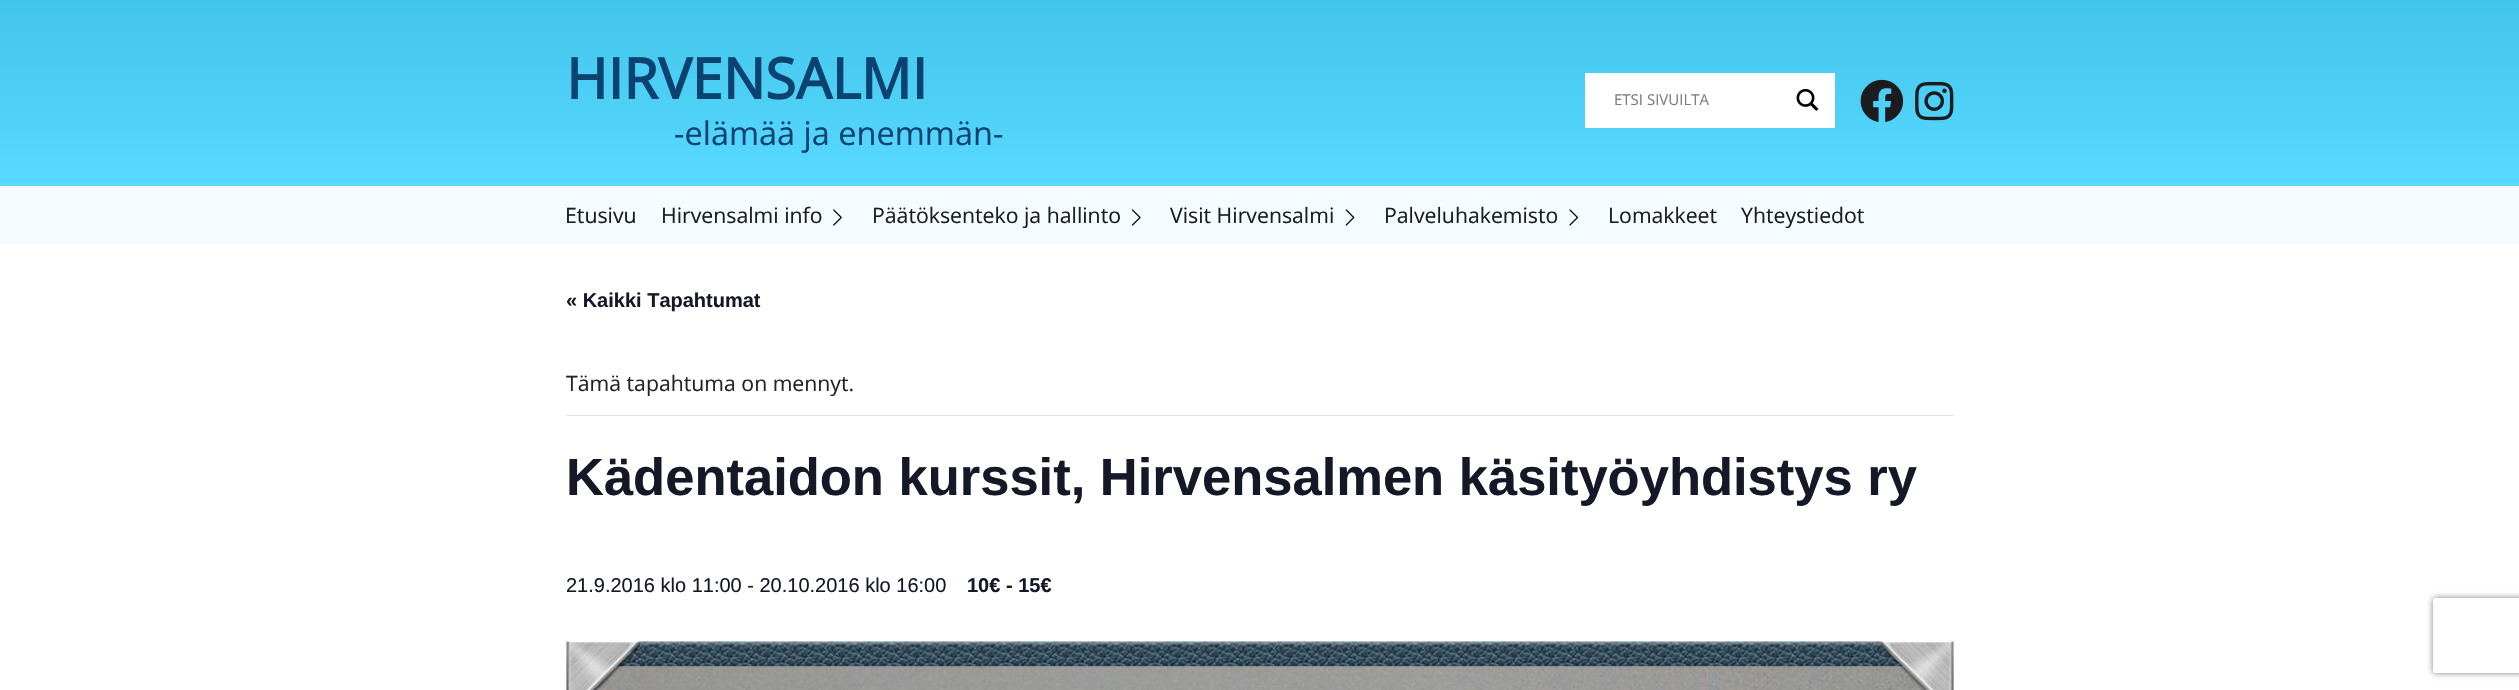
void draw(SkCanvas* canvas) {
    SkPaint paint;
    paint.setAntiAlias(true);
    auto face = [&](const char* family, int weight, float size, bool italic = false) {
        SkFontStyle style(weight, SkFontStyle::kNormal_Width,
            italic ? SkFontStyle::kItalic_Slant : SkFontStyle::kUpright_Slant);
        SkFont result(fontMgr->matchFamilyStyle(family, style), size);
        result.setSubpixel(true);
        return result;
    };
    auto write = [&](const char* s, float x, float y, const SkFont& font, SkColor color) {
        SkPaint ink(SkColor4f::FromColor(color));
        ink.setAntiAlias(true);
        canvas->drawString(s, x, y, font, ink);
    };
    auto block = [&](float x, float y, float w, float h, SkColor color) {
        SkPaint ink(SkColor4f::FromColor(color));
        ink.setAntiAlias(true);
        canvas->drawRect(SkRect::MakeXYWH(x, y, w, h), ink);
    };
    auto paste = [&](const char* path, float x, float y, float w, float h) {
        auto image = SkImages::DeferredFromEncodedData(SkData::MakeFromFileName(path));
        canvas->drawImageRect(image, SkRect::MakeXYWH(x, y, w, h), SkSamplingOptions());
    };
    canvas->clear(SK_ColorWHITE);
    {
        const SkColor colors[] = {SkColorSetRGB(88, 217, 255), SkColorSetRGB(66, 197, 235)};
        const float stops[] = {0, 1};
        const SkPoint ends[] = {{1260, 186}, {1260, 0}};
        paint.setShader(SkGradientShader::MakeLinear(ends, colors, stops, 2, SkTileMode::kClamp));
        paint.setAlpha(255);
    }
    canvas->drawRect(SkRect::MakeXYWH(0, 0, 2519, 186), paint);
    auto kFont1 = face("Open Sans", 700, 56.25f);
    write("HIRVENSALMI", 566, 99, kFont1, SkColorSetRGB(12, 66, 112));
    auto kFont2 = face("Open Sans", 400, 32.5f);
    write("-elämää ja enemmän-", 674, 145, kFont2, SkColorSetRGB(12, 66, 112));
    block(1585, 73, 250, 55, SK_ColorWHITE);
    auto kFont3 = face("Open Sans", 400, 15);
    write("ETSI SIVUILTA", 1614, 105, kFont3, SkColorSetRGB(125, 125, 125));
    paste("pic1.png", 1796, 88, 23, 23);
    paste("pic2.png", 1860, 79, 44, 43);
    paste("pic3.png", 1915, 81, 39, 40);
    block(0, 186, 2519, 58, SkColorSetRGB(245, 251, 255));
    auto kFont4 = face("Open Sans", 400, 21.25f);
    write("Etusivu", 565, 223, kFont4, SkColorSetRGB(27, 28, 30));
    write("Hirvensalmi info", 661, 223, kFont4, SkColorSetRGB(27, 28, 30));
    paste("pic4.png", 833, 209, 9, 17);
    write("Päätöksenteko ja hallinto", 872, 223, kFont4, SkColorSetRGB(27, 28, 30));
    paste("pic5.png", 1132, 209, 9, 17);
    write("Visit Hirvensalmi", 1170, 223, kFont4, SkColorSetRGB(27, 28, 30));
    paste("pic6.png", 1345, 209, 10, 17);
    write("Palveluhakemisto", 1384, 223, kFont4, SkColorSetRGB(27, 28, 30));
    paste("pic7.png", 1569, 209, 10, 17);
    write("Lomakkeet", 1608, 223, kFont4, SkColorSetRGB(27, 28, 30));
    write("Yhteystiedot", 1741, 223, kFont4, SkColorSetRGB(27, 28, 30));
    auto kFont5 = face("Liberation Sans", 700, 20);
    write("« Kaikki Tapahtumat", 566, 307, kFont5, SkColorSetRGB(20, 24, 39));
    block(566, 415, 1388, 1, SkColorSetRGB(228, 228, 228));
    write("Tämä tapahtuma on mennyt.", 566, 391, kFont4, SkColorSetRGB(33, 37, 41));
    auto kFont6 = face("Liberation Sans", 700, 52.5f);
    write("Kädentaidon kurssit, Hirvensalmen käsityöyhdistys ry", 566, 495, kFont6, SkColorSetRGB(20, 24, 39));
    auto kFont7 = face("Liberation Sans", 400, 20);
    write("21.9.2016 klo 11:00 - 20.10.2016 klo 16:00", 566, 592, kFont7, SkColorSetRGB(20, 24, 39));
    write("10€ - 15€", 967, 592, kFont5, SkColorSetRGB(20, 24, 39));
    paste("pic8.png", 566, 641, 1388, 49);
    canvas->save();
    canvas->clipPath(SkPathBuilder(SkPathFillType::kEvenOdd).moveTo(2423, 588).lineTo(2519, 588).lineTo(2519, 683).lineTo(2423, 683).close().moveTo(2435.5f, 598).lineTo(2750.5f, 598).cubicTo(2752, 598, 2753, 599, 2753, 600.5f).lineTo(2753, 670.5f).cubicTo(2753, 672, 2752, 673, 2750.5f, 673).lineTo(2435.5f, 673).cubicTo(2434, 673, 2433, 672, 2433, 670.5f).lineTo(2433, 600.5f).cubicTo(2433, 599, 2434, 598, 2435.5f, 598).close().detach(), true);
    paint.setShader(nullptr);
    paint.setColor(SkColorSetRGB(128, 128, 128));
    paint.setMaskFilter(SkMaskFilter::MakeBlur(kNormal_SkBlurStyle, 3));
    canvas->drawRoundRect(SkRect::MakeXYWH(2433, 598, 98, 75), 2.5f, 2.5f, paint);
    paint.setMaskFilter(nullptr);
    canvas->restore();
}
